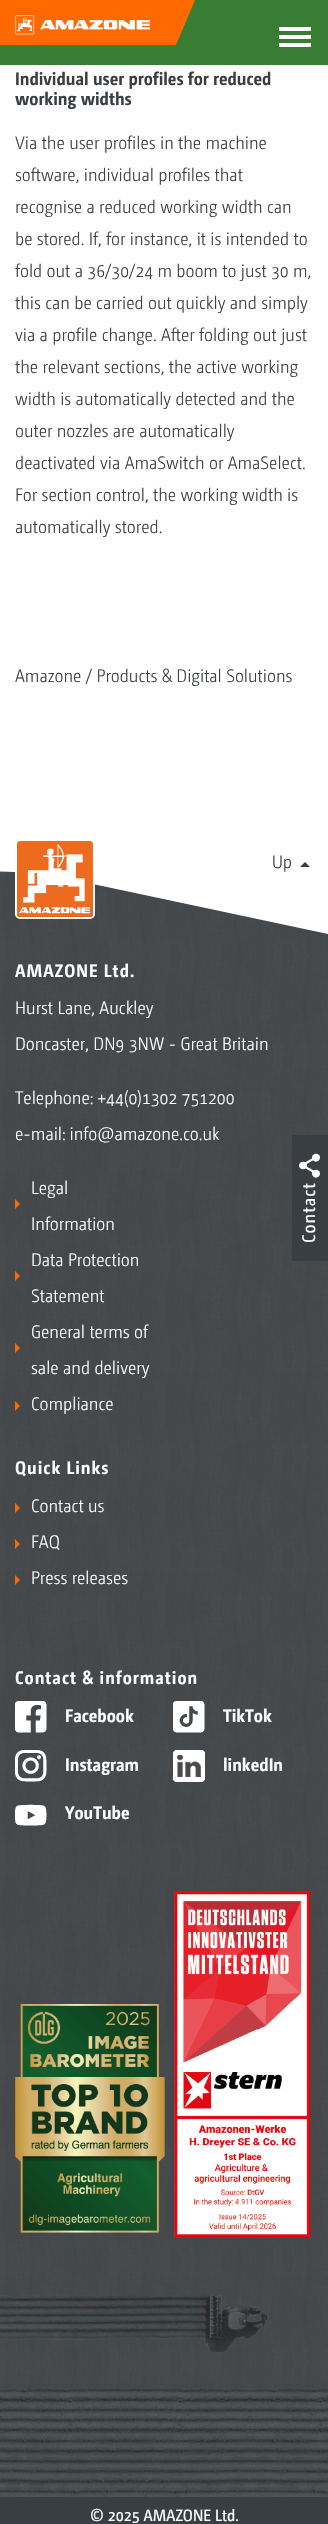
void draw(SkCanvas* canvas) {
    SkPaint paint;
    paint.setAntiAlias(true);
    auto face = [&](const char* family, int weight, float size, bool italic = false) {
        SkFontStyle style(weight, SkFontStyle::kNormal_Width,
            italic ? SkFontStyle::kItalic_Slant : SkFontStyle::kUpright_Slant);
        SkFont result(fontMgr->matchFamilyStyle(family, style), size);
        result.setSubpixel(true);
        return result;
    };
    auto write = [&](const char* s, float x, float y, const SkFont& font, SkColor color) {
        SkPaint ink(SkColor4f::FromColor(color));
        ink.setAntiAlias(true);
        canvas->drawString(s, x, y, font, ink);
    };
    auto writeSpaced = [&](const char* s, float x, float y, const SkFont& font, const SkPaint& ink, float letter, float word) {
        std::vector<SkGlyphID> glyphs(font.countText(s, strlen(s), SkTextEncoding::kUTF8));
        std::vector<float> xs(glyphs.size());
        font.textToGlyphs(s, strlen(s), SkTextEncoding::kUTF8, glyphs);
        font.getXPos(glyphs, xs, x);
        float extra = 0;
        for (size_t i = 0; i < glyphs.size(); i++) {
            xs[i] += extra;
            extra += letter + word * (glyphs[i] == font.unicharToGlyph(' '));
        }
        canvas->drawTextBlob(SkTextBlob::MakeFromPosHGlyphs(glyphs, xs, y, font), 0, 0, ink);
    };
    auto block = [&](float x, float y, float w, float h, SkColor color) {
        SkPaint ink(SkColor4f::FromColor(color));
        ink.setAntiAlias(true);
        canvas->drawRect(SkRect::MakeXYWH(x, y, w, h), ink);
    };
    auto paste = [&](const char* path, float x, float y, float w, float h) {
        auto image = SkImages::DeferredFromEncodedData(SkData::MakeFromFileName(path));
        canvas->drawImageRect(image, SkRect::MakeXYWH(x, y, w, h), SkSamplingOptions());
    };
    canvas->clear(SK_ColorWHITE);
    block(0, 0, 328, 65, SkColorSetRGB(56, 125, 51));
    paint.setColor(SkColorSetRGB(255, 105, 0));
    canvas->drawPath(SkPathBuilder().moveTo(0, 0).lineTo(0, 45).lineTo(176, 45).lineTo(195, 0).close().detach(), paint);
    paste("pic1.png", 15, 15, 135, 20);
    block(279, 27, 32, 4, SK_ColorWHITE);
    block(279, 35, 32, 4, SK_ColorWHITE);
    block(279, 43, 32, 4, SK_ColorWHITE);
    auto kFont1 = face("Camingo", 700, 18);
    write("Individual user profiles for reduced", 15, 85, kFont1, SkColorSetRGB(56, 62, 66));
    write("working widths", 15, 105, kFont1, SkColorSetRGB(56, 62, 66));
    auto kFont2 = face("Camingo", 300, 18);
    write("Via the user profiles in the machine", 15, 149, kFont2, SkColorSetRGB(56, 62, 66));
    write("software, individual profiles that", 15, 181, kFont2, SkColorSetRGB(56, 62, 66));
    write("recognise a reduced working width can", 15, 213, kFont2, SkColorSetRGB(56, 62, 66));
    write("be stored. If, for instance, it is intended to", 15, 245, kFont2, SkColorSetRGB(56, 62, 66));
    write("fold out a 36/30/24 m boom to just 30 m,", 15, 277, kFont2, SkColorSetRGB(56, 62, 66));
    write("this can be carried out quickly and simply", 15, 309, kFont2, SkColorSetRGB(56, 62, 66));
    write("via a profile change. After folding out just", 15, 341, kFont2, SkColorSetRGB(56, 62, 66));
    write("the relevant sections, the active working", 15, 373, kFont2, SkColorSetRGB(56, 62, 66));
    write("width is automatically detected and the", 15, 405, kFont2, SkColorSetRGB(56, 62, 66));
    write("outer nozzles are automatically", 15, 437, kFont2, SkColorSetRGB(56, 62, 66));
    write("deactivated via AmaSwitch or AmaSelect.", 15, 469, kFont2, SkColorSetRGB(56, 62, 66));
    write("For section control, the working width is", 15, 501, kFont2, SkColorSetRGB(56, 62, 66));
    write("automatically stored.", 15, 533, kFont2, SkColorSetRGB(56, 62, 66));
    write("Amazone / Products & Digital Solutions", 15, 682, kFont2, SkColorSetRGB(56, 62, 66));
    paste("pic2.png", 0, 871, 328, 1518);
    paint.setColor(SK_ColorWHITE);
    canvas->drawPath(SkPathBuilder(SkPathFillType::kEvenOdd).moveTo(328, 934).lineTo(41, 873).lineTo(-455, 856).lineTo(-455, 754).lineTo(328, 754).close().detach(), paint);
    paint.setStyle(SkPaint::kStroke_Style);
    paint.setStrokeWidth(2);
    canvas->drawRoundRect(SkRect::MakeXYWH(16, 840, 78, 78), 4, 4, paint);
    paste("pic3.png", 17, 841, 76, 76);
    write("Up", 272, 868, kFont2, SkColorSetRGB(56, 62, 66));
    paint.setStyle(SkPaint::kFill_Style);
    paint.setColor(SkColorSetRGB(56, 62, 66));
    canvas->drawPath(SkPathBuilder().moveTo(310, 867).lineTo(300, 867).lineTo(305, 862).close().detach(), paint);
    paint.setColor(SK_ColorWHITE);
    writeSpaced("AMAZONE Ltd.", 15, 977, kFont1, paint, 1, 0);
    write("Hurst Lane, Auckley", 15, 1014, kFont2, SK_ColorWHITE);
    write("Doncaster, DN9 3NW - Great Britain", 15, 1050, kFont2, SK_ColorWHITE);
    write("Telephone: +44(0)1302 751200", 15, 1104, kFont2, SK_ColorWHITE);
    write("e-mail: info@amazone.co.uk", 15, 1140, kFont2, SK_ColorWHITE);
    write("Legal", 31, 1194, kFont2, SK_ColorWHITE);
    paint.setColor(SkColorSetRGB(255, 105, 0));
    canvas->drawPath(SkPathBuilder().moveTo(15, 1209).lineTo(15, 1199).lineTo(20, 1204).close().detach(), paint);
    write("Information", 31, 1230, kFont2, SK_ColorWHITE);
    write("Data Protection", 31, 1266, kFont2, SK_ColorWHITE);
    canvas->drawPath(SkPathBuilder().moveTo(15, 1281).lineTo(15, 1271).lineTo(20, 1276).close().detach(), paint);
    write("Statement", 31, 1302, kFont2, SK_ColorWHITE);
    write("General terms of", 31, 1338, kFont2, SK_ColorWHITE);
    canvas->drawPath(SkPathBuilder().moveTo(15, 1353).lineTo(15, 1343).lineTo(20, 1348).close().detach(), paint);
    write("sale and delivery", 31, 1374, kFont2, SK_ColorWHITE);
    canvas->drawPath(SkPathBuilder().moveTo(15, 1411).lineTo(15, 1401).lineTo(20, 1406).close().detach(), paint);
    write("Compliance", 31, 1410, kFont2, SK_ColorWHITE);
    paint.setColor(SK_ColorWHITE);
    writeSpaced("Quick Links", 15, 1474, kFont1, paint, 1, 0);
    paint.setColor(SkColorSetRGB(255, 105, 0));
    canvas->drawPath(SkPathBuilder().moveTo(15, 1513).lineTo(15, 1503).lineTo(20, 1508).close().detach(), paint);
    write("Contact us", 31, 1512, kFont2, SK_ColorWHITE);
    canvas->drawPath(SkPathBuilder().moveTo(15, 1549).lineTo(15, 1539).lineTo(20, 1544).close().detach(), paint);
    write("FAQ", 31, 1548, kFont2, SK_ColorWHITE);
    canvas->drawPath(SkPathBuilder().moveTo(15, 1585).lineTo(15, 1575).lineTo(20, 1580).close().detach(), paint);
    write("Press releases", 31, 1584, kFont2, SK_ColorWHITE);
    paint.setColor(SK_ColorWHITE);
    writeSpaced("Contact & information", 15, 1684, kFont1, paint, 1, 0);
    paste("pic4.png", 15, 1701, 32, 32);
    write("Facebook", 65, 1722, kFont1, SK_ColorWHITE);
    paste("pic5.png", 173, 1701, 32, 32);
    write("TikTok", 223, 1722, kFont1, SK_ColorWHITE);
    paste("pic6.png", 15, 1750, 32, 32);
    write("Instagram", 65, 1771, kFont1, SK_ColorWHITE);
    paste("pic7.png", 173, 1750, 32, 32);
    write("linkedIn", 223, 1771, kFont1, SK_ColorWHITE);
    paste("pic8.png", 15, 1804, 32, 22);
    write("YouTube", 65, 1819, kFont1, SK_ColorWHITE);
    paste("pic9.png", 15, 1891, 296, 347);
    block(0, 2497, 328, 27, SkColorSetRGB(56, 62, 66));
    paste("pic10.png", 0, 2295, 267, 57);
    paste("pic11.png", 0, 2389, 328, 108);
    auto kFont3 = face("Camingo", 400, 16.25f);
    write("© 2025 AMAZONE Ltd.", 90, 2521, kFont3, SK_ColorWHITE);
    block(292, 1135, 36, 126, SkColorSetRGB(56, 62, 66));
    canvas->drawPath(SkPathBuilder().moveTo(317, 1175).lineTo(304, 1167.5f).lineTo(305, 1165.5f).lineTo(318, 1173).close().moveTo(304, 1163).lineTo(317, 1155.5f).lineTo(318, 1157.5f).lineTo(305, 1165).close().detach(), paint);
    canvas->drawPath(SkPathBuilder().moveTo(312, 1173.5f).cubicTo(312, 1168.5f, 320, 1168.5f, 320, 1173.5f).cubicTo(320, 1179, 312, 1179, 312, 1173.5f).close().moveTo(299, 1165.5f).cubicTo(299, 1160.5f, 307, 1160.5f, 307, 1165.5f).cubicTo(307, 1170.5f, 299, 1170.5f, 299, 1165.5f).close().detach(), paint);
    canvas->drawPath(SkPathBuilder().moveTo(312, 1157.5f).cubicTo(312, 1152.5f, 320, 1152.5f, 320, 1157.5f).cubicTo(320, 1163, 312, 1163, 312, 1157.5f).close().detach(), paint);
    auto kFont4 = face("Camingo", 400, 18);
    canvas->save();
    canvas->rotate(-90, 315, 1243);
    writeSpaced("Contact", 315, 1243, kFont4, paint, 1, 0);
    canvas->restore();
}
